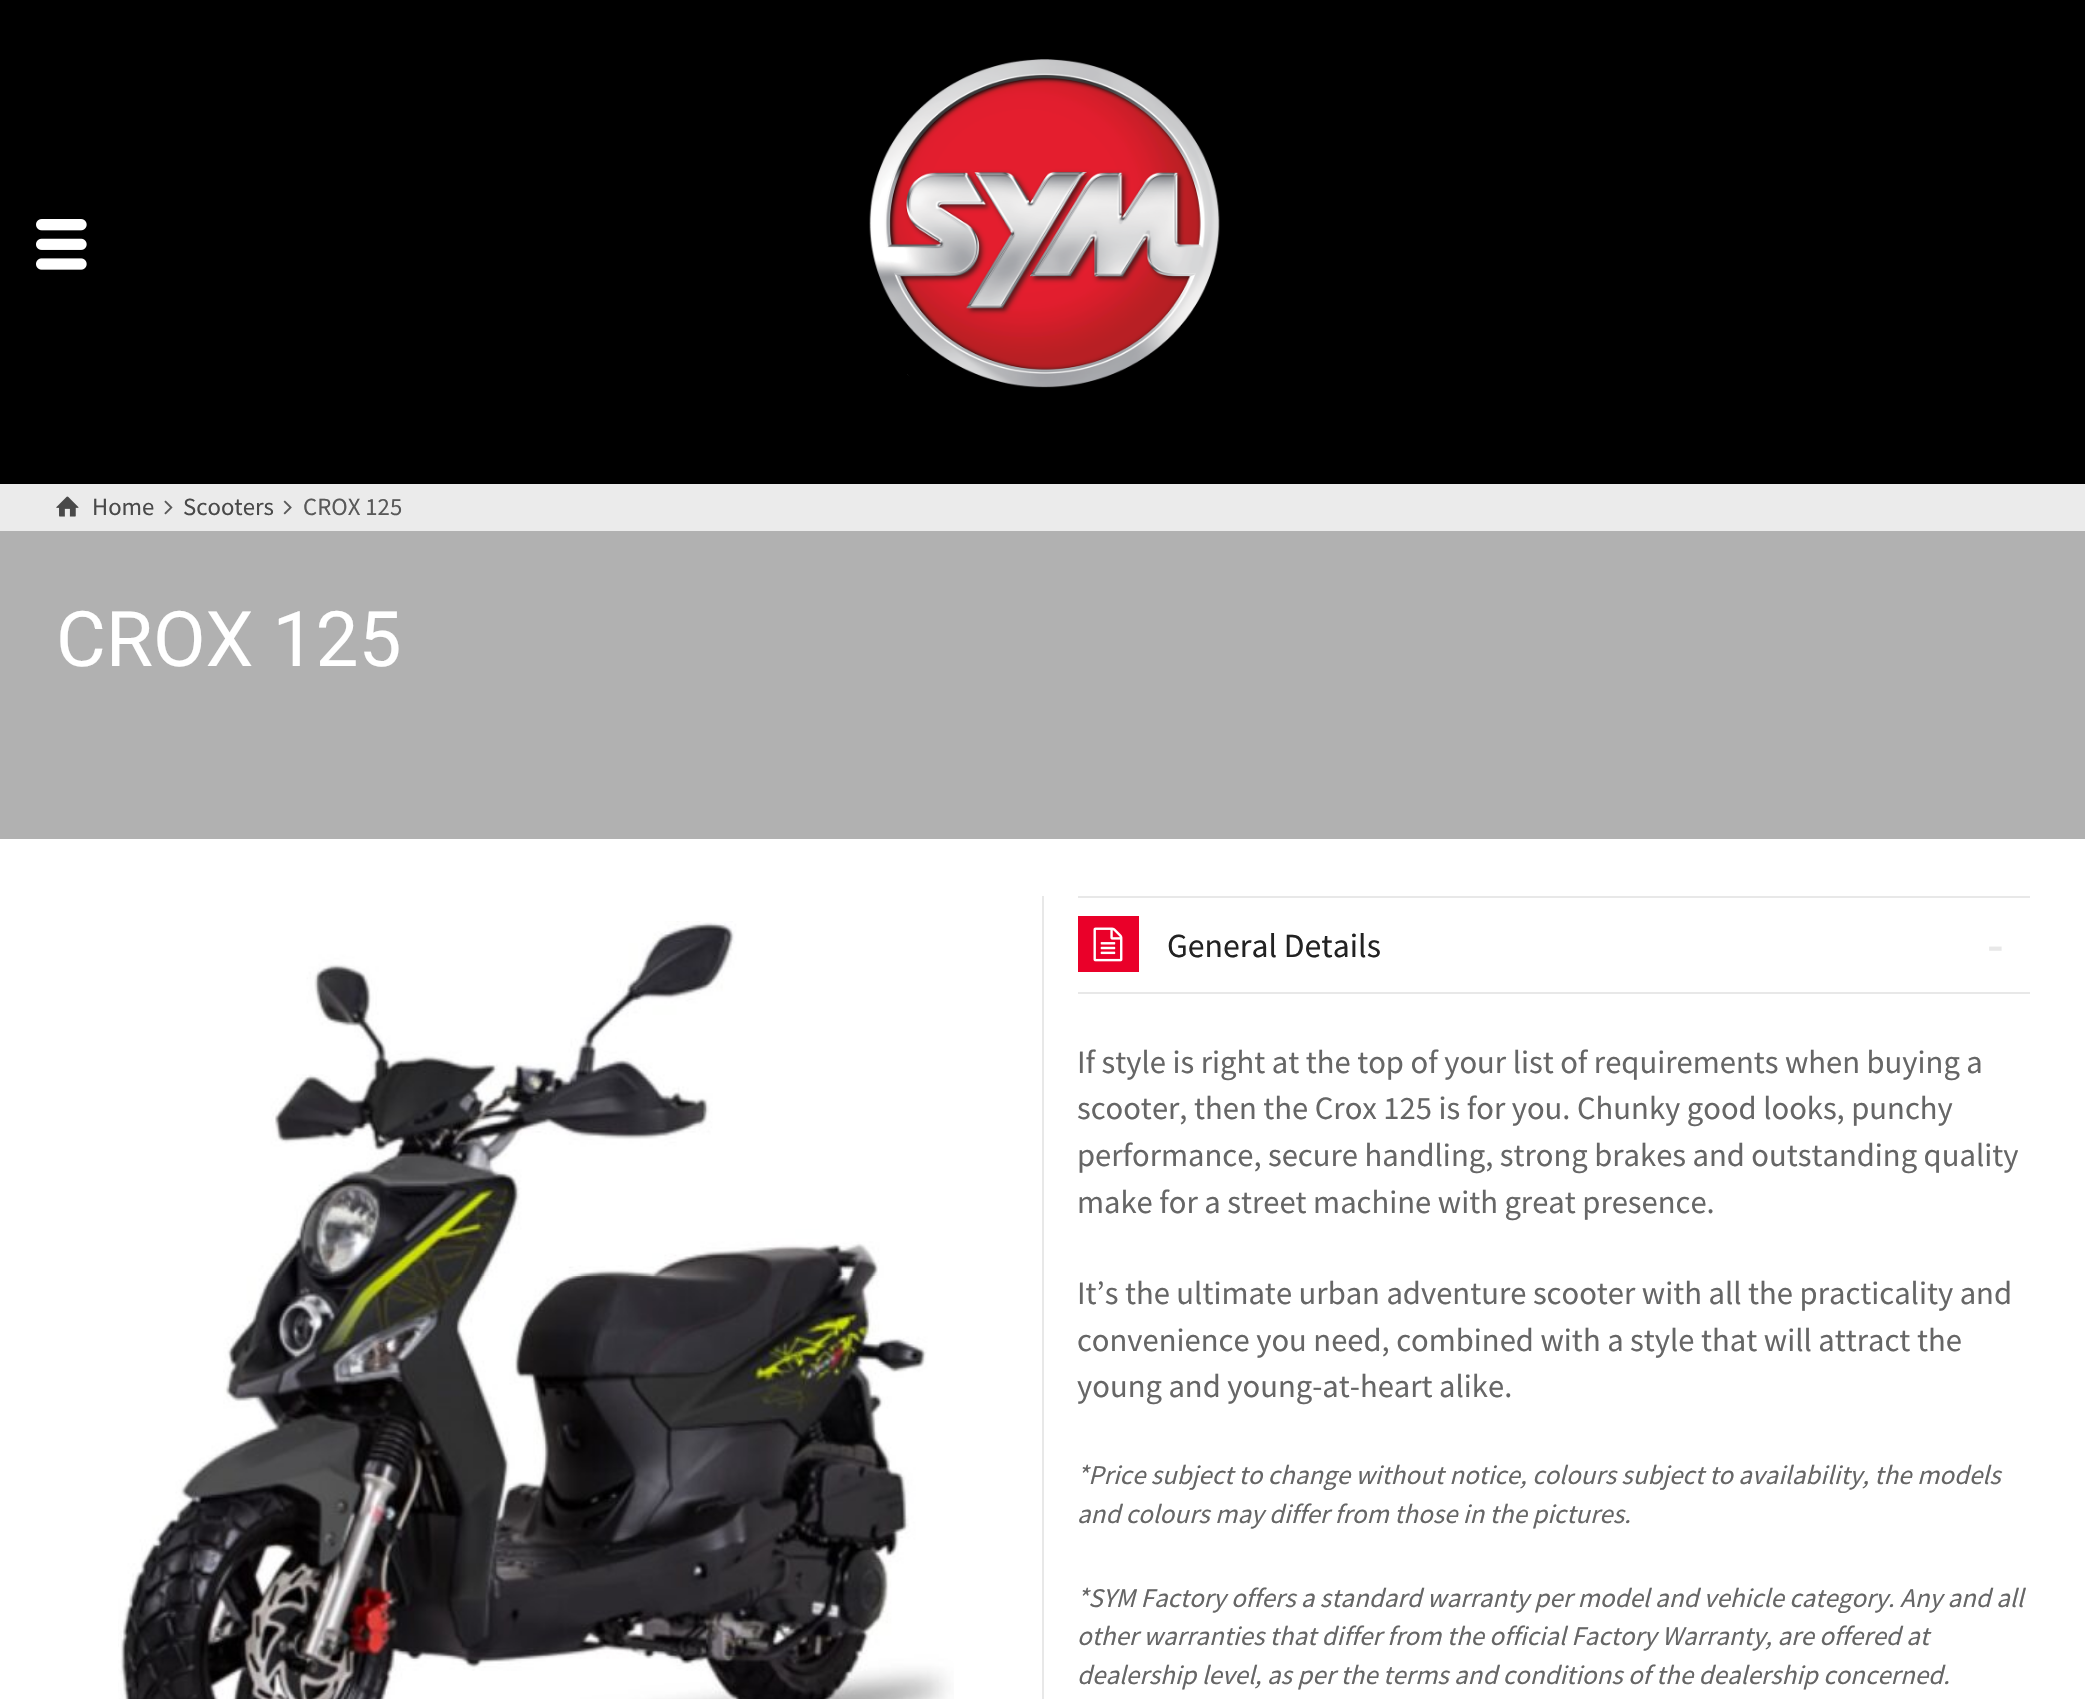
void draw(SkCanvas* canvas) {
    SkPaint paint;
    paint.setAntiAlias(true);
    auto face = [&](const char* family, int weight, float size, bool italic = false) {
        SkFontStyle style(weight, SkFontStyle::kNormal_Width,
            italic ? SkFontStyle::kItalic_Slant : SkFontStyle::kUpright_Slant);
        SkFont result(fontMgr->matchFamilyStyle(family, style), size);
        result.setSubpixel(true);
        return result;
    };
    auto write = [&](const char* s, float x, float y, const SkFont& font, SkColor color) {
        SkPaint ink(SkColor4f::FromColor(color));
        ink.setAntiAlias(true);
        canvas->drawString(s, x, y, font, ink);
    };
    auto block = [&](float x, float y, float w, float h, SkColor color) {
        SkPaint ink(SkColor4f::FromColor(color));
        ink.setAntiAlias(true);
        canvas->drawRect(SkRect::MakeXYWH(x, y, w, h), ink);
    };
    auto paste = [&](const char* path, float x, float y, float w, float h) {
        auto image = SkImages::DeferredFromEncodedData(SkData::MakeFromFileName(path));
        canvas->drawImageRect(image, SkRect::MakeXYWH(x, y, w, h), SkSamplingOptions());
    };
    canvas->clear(SK_ColorBLACK);
    paste("pic1.png", 36, 219, 51, 51);
    paste("pic2.png", 869, 59, 351, 329);
    block(0, 531, 2085, 308, SkColorSetRGB(177, 177, 177));
    block(0, 484, 2085, 47, SkColorSetRGB(235, 235, 235));
    paste("pic3.png", 56, 496, 23, 21);
    auto kFont1 = face("Source Sans Pro", 400, 24.75f);
    write("Home", 92, 515, kFont1, SkColorSetRGB(73, 73, 73));
    paste("pic4.png", 164, 500, 9, 15);
    write("Scooters", 183, 515, kFont1, SkColorSetRGB(73, 73, 73));
    paste("pic5.png", 283, 500, 9, 15);
    write("CROX 125", 303, 515, kFont1, SkColorSetRGB(89, 89, 89));
    auto kFont2 = face("Roboto", 400, 76.5f);
    write("CROX 125", 56, 666, kFont2, SK_ColorWHITE);
    block(0, 839, 2085, 860, SK_ColorWHITE);
    paste("pic6.png", 118, 921, 836, 778);
    block(1042, 896, 2, 803, SkColorSetRGB(232, 232, 232));
    block(1078, 896, 952, 2, SkColorSetRGB(232, 232, 232));
    block(1078, 916, 61, 56, SkColorSetRGB(234, 0, 41));
    paste("pic7.png", 1093, 927, 30, 35);
    auto kFont3 = face("Source Sans Pro", 400, 33.75f);
    write("General Details", 1167, 957, kFont3, SkColorSetRGB(34, 34, 34));
    auto kFont4 = face("Liberation Sans", 400, 50);
    write("-", 1987, 962, kFont4, SkColorSetRGB(232, 232, 232));
    block(1078, 992, 952, 2, SkColorSetRGB(232, 232, 232));
    auto kFont5 = face("Source Sans Pro", 400, 32.6f);
    write("If style is right at the top of your list of requirements when buying a", 1077, 1073, kFont5, SkColorSetRGB(102, 102, 102));
    write("scooter, then the Crox 125 is for you. Chunky good looks, punchy", 1077, 1119, kFont5, SkColorSetRGB(102, 102, 102));
    write("performance, secure handling, strong brakes and outstanding quality", 1077, 1166, kFont5, SkColorSetRGB(102, 102, 102));
    write("make for a street machine with great presence.", 1077, 1213, kFont5, SkColorSetRGB(102, 102, 102));
    write("It’s the ultimate urban adventure scooter with all the practicality and", 1077, 1304, kFont5, SkColorSetRGB(102, 102, 102));
    write("convenience you need, combined with a style that will attract the", 1077, 1351, kFont5, SkColorSetRGB(102, 102, 102));
    write("young and young-at-heart alike.", 1077, 1397, kFont5, SkColorSetRGB(102, 102, 102));
    auto kFont6 = face("Source Sans Pro", 400, 27, true);
    write("*Price subject to change without notice, colours subject to availability, the models", 1077, 1484, kFont6, SkColorSetRGB(102, 102, 102));
    write("and colours may differ from those in the pictures.", 1077, 1523, kFont6, SkColorSetRGB(102, 102, 102));
    write("*SYM Factory offers a standard warranty per model and vehicle category. Any and all", 1077, 1607, kFont6, SkColorSetRGB(102, 102, 102));
    write("other warranties that differ from the official Factory Warranty, are offered at", 1077, 1645, kFont6, SkColorSetRGB(102, 102, 102));
    write("dealership level, as per the terms and conditions of the dealership concerned.", 1077, 1684, kFont6, SkColorSetRGB(102, 102, 102));
}
